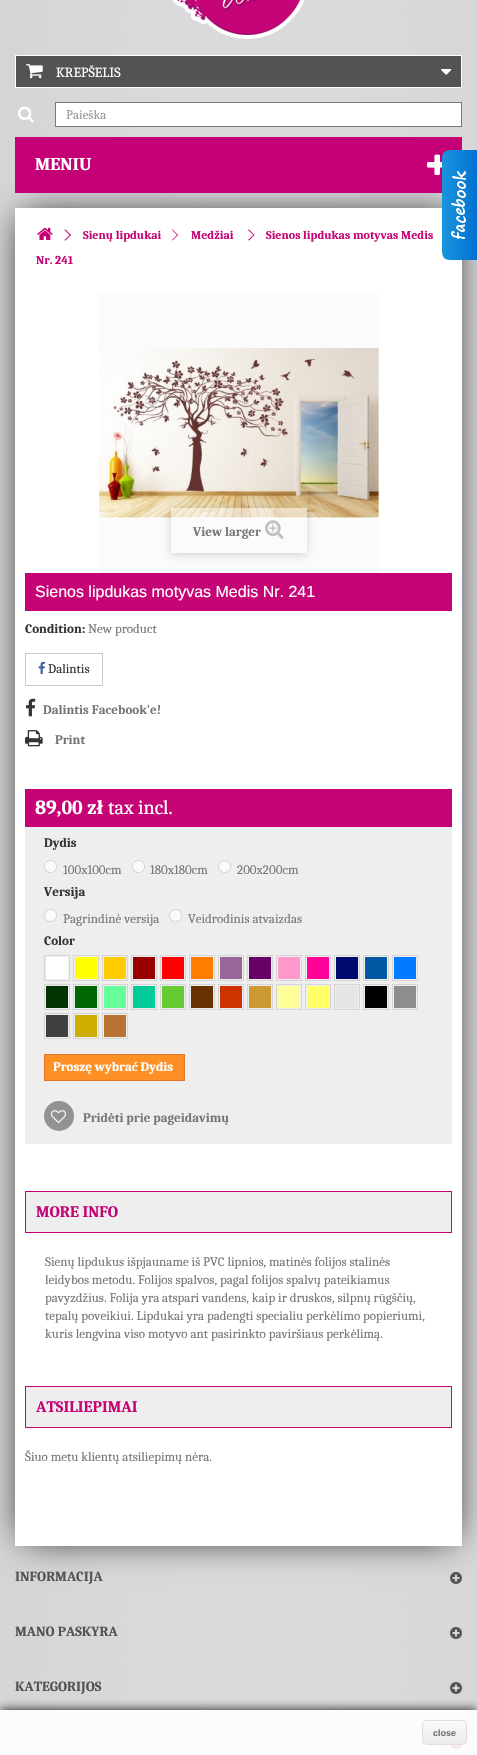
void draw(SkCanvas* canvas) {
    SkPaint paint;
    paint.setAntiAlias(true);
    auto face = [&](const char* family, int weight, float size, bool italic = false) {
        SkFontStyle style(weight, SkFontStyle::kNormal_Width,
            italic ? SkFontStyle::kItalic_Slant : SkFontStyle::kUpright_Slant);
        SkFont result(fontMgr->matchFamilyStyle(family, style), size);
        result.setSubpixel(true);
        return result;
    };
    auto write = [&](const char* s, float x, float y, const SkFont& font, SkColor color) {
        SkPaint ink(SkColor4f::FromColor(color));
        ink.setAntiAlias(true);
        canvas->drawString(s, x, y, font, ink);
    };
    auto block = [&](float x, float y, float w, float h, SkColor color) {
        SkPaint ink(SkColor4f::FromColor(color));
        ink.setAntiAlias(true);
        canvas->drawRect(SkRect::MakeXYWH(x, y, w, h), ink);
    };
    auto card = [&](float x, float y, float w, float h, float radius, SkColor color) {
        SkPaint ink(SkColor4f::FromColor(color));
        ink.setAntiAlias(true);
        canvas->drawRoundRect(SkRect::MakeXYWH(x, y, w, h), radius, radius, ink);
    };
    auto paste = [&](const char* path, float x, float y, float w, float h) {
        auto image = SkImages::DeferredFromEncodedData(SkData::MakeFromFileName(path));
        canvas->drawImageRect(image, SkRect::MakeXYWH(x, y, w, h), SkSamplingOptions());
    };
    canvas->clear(SK_ColorWHITE);
    paste("pic1.png", 0, 0, 477, 1755);
    paste("pic2.png", 172, 0, 133, 39);
    paint.setColor(SkColorSetRGB(83, 83, 83));
    canvas->drawRect(SkRect::MakeXYWH(15.5f, 55.5f, 446, 32), paint);
    paint.setStyle(SkPaint::kStroke_Style);
    paint.setStrokeWidth(1);
    paint.setColor(SK_ColorWHITE);
    canvas->drawRect(SkRect::MakeXYWH(15.5f, 55.5f, 446, 32), paint);
    paste("pic3.png", 26, 64, 17, 15);
    auto kFont1 = face("Caladea", 400, 14);
    write("KREPŠELIS", 56, 77, kFont1, SK_ColorWHITE);
    paste("pic4.png", 441, 69, 11, 6);
    paste("pic5.png", 18, 106, 16, 17);
    paint.setStyle(SkPaint::kFill_Style);
    canvas->drawRect(SkRect::MakeXYWH(55.5f, 102.5f, 406, 24), paint);
    paint.setStyle(SkPaint::kStroke_Style);
    paint.setColor(SkColorSetRGB(121, 121, 121));
    canvas->drawRect(SkRect::MakeXYWH(55.5f, 102.5f, 406, 24), paint);
    auto kFont2 = face("Caladea", 400, 13);
    write("Paieška", 66, 119, kFont2, SkColorSetRGB(153, 153, 153));
    paint.setStyle(SkPaint::kFill_Style);
    paint.setColor(SK_ColorBLACK);
    paint.setMaskFilter(SkMaskFilter::MakeBlur(kNormal_SkBlurStyle, 17.5f));
    canvas->drawRect(SkRect::MakeXYWH(24, 217, 429, 1320), paint);
    paint.setMaskFilter(nullptr);
    block(15, 137, 447, 56, SkColorSetRGB(197, 0, 118));
    auto kFont3 = face("Caladea", 700, 18);
    write("MENIU", 35, 170, kFont3, SK_ColorWHITE);
    paste("pic6.png", 427, 154, 15, 21);
    block(15, 208, 447, 1338, SK_ColorWHITE);
    paste("pic7.png", 37, 227, 16, 13);
    paint.setColor(SkColorSetRGB(197, 0, 118));
    canvas->drawPath(SkPathBuilder().moveTo(65.5f, 229.5f).lineTo(71, 235).lineTo(70, 235.5f).lineTo(64.5f, 230).close().detach(), paint);
    canvas->drawPath(SkPathBuilder().moveTo(70, 234.5f).lineTo(71, 235).lineTo(65.5f, 240.5f).lineTo(64.5f, 240).close().detach(), paint);
    paint.setColor(SK_ColorWHITE);
    canvas->drawPath(SkPathBuilder().moveTo(65, 229.5f).lineTo(70.5f, 235).lineTo(65, 240.5f).lineTo(59.5f, 235).close().detach(), paint);
    paint.setColor(SkColorSetRGB(197, 0, 118));
    canvas->drawPath(SkPathBuilder().moveTo(65, 229.5f).lineTo(70.5f, 235).lineTo(70, 235.5f).lineTo(64.5f, 230).close().detach(), paint);
    canvas->drawPath(SkPathBuilder().moveTo(70, 234.5f).lineTo(70.5f, 235).lineTo(65, 240.5f).lineTo(64.5f, 240).close().detach(), paint);
    auto kFont4 = face("Caladea", 700, 12);
    write("Sienų lipdukai", 83, 239, kFont4, SkColorSetRGB(197, 5, 118));
    canvas->drawPath(SkPathBuilder().moveTo(172.5f, 229.5f).lineTo(178, 235).lineTo(177.5f, 235.5f).lineTo(172, 230).close().detach(), paint);
    canvas->drawPath(SkPathBuilder().moveTo(177.5f, 234.5f).lineTo(178, 235).lineTo(172.5f, 240.5f).lineTo(172, 240).close().detach(), paint);
    write("Medžiai", 191, 239, kFont4, SkColorSetRGB(197, 5, 118));
    canvas->drawPath(SkPathBuilder().moveTo(249, 229.5f).lineTo(254.5f, 235).lineTo(254, 235.5f).lineTo(248, 230).close().detach(), paint);
    canvas->drawPath(SkPathBuilder().moveTo(254, 234.5f).lineTo(254.5f, 235).lineTo(249, 240.5f).lineTo(248, 240).close().detach(), paint);
    write("Sienos lipdukas motyvas Medis", 266, 239, kFont4, SkColorSetRGB(197, 5, 118));
    write("Nr. 241", 36, 264, kFont4, SkColorSetRGB(197, 5, 118));
    block(99, 293, 280, 280, SkColorSetRGB(251, 251, 251));
    paste("pic8.png", 99, 348, 280, 171);
    canvas->save();
    canvas->clipPath(SkPathBuilder(SkPathFillType::kEvenOdd).moveTo(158, 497).lineTo(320, 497).lineTo(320, 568).lineTo(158, 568).close().moveTo(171, 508).lineTo(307, 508).lineTo(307, 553).lineTo(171, 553).close().detach(), true);
    paint.setColor(SkColorSetARGB(41, 0, 0, 0));
    paint.setMaskFilter(SkMaskFilter::MakeBlur(kNormal_SkBlurStyle, 4));
    canvas->drawRect(SkRect::MakeXYWH(171, 510, 136, 45), paint);
    paint.setMaskFilter(nullptr);
    canvas->restore();
    block(171, 508, 136, 11, SkColorSetARGB(128, 255, 255, 255));
    auto kFont5 = face("Caladea", 700, 13);
    write("View larger", 193, 536, kFont5, SkColorSetRGB(119, 119, 119));
    paste("pic9.png", 265, 520, 19, 19);
    block(25, 573, 427, 38, SkColorSetRGB(197, 5, 118));
    auto kFont6 = face("Liberation Sans", 400, 16);
    write("Sienos lipdukas motyvas Medis Nr. 241", 35, 597, kFont6, SK_ColorWHITE);
    write("Condition:", 25, 633, kFont5, SkColorSetRGB(51, 51, 51));
    write("New product", 88, 633, kFont2, SkColorSetRGB(119, 119, 119));
    paint.setStyle(SkPaint::kStroke_Style);
    paint.setColor(SkColorSetRGB(204, 204, 204));
    canvas->drawRect(SkRect::MakeXYWH(25.5f, 653.5f, 77, 32), paint);
    paste("pic10.png", 38, 661, 7, 13);
    write("Dalintis", 48, 673, kFont2, SkColorSetRGB(51, 51, 51));
    paste("pic11.png", 26, 698, 10, 19);
    write("Dalintis Facebook'e!", 43, 714, kFont5, SkColorSetRGB(119, 119, 119));
    paste("pic12.png", 25, 730, 18, 17);
    write("Print", 55, 744, kFont5, SkColorSetRGB(119, 119, 119));
    block(25, 827, 427, 317, SkColorSetRGB(238, 238, 238));
    block(25, 789, 427, 38, SkColorSetRGB(197, 5, 118));
    auto kFont7 = face("Caladea", 700, 20);
    write("89,00 zł", 35, 814, kFont7, SK_ColorWHITE);
    auto kFont8 = face("Caladea", 400, 20);
    write("tax incl.", 108, 814, kFont8, SK_ColorWHITE);
    write("Dydis", 44, 847, kFont5, SkColorSetRGB(51, 51, 51));
    paste("pic13.png", 44, 860, 13, 13);
    write("100x100cm", 63, 874, kFont2, SkColorSetRGB(119, 119, 119));
    paste("pic13.png", 132, 860, 13, 13);
    write("180x180cm", 150, 874, kFont2, SkColorSetRGB(119, 119, 119));
    paste("pic13.png", 218, 860, 13, 13);
    write("200x200cm", 237, 874, kFont2, SkColorSetRGB(119, 119, 119));
    write("Versija", 44, 896, kFont5, SkColorSetRGB(51, 51, 51));
    paste("pic13.png", 44, 909, 13, 13);
    write("Pagrindinė versija", 63, 923, kFont2, SkColorSetRGB(119, 119, 119));
    paste("pic13.png", 169, 909, 13, 13);
    write("Veidrodinis atvaizdas", 188, 923, kFont2, SkColorSetRGB(119, 119, 119));
    write("Color", 44, 945, kFont5, SkColorSetRGB(51, 51, 51));
    paint.setColor(SkColorSetRGB(214, 212, 212));
    canvas->drawRect(SkRect::MakeXYWH(44.5f, 955.5f, 25, 25), paint);
    block(46, 957, 22, 22, SK_ColorWHITE);
    canvas->drawRect(SkRect::MakeXYWH(73.5f, 955.5f, 25, 25), paint);
    block(75, 957, 22, 22, SkColorSetRGB(255, 255, 0));
    canvas->drawRect(SkRect::MakeXYWH(102.5f, 955.5f, 25, 25), paint);
    block(104, 957, 22, 22, SkColorSetRGB(255, 204, 0));
    canvas->drawRect(SkRect::MakeXYWH(131.5f, 955.5f, 25, 25), paint);
    block(133, 957, 22, 22, SkColorSetRGB(153, 0, 0));
    canvas->drawRect(SkRect::MakeXYWH(160.5f, 955.5f, 25, 25), paint);
    block(162, 957, 22, 22, SkColorSetRGB(255, 0, 0));
    canvas->drawRect(SkRect::MakeXYWH(189.5f, 955.5f, 25, 25), paint);
    block(191, 957, 22, 22, SkColorSetRGB(255, 126, 0));
    canvas->drawRect(SkRect::MakeXYWH(218.5f, 955.5f, 25, 25), paint);
    block(220, 957, 22, 22, SkColorSetRGB(153, 102, 153));
    canvas->drawRect(SkRect::MakeXYWH(247.5f, 955.5f, 25, 25), paint);
    block(249, 957, 22, 22, SkColorSetRGB(102, 0, 102));
    canvas->drawRect(SkRect::MakeXYWH(276.5f, 955.5f, 25, 25), paint);
    block(278, 957, 22, 22, SkColorSetRGB(255, 153, 204));
    canvas->drawRect(SkRect::MakeXYWH(305.5f, 955.5f, 25, 25), paint);
    block(307, 957, 22, 22, SkColorSetRGB(255, 0, 153));
    canvas->drawRect(SkRect::MakeXYWH(334.5f, 955.5f, 25, 25), paint);
    block(336, 957, 22, 22, SkColorSetRGB(0, 11, 112));
    canvas->drawRect(SkRect::MakeXYWH(363.5f, 955.5f, 25, 25), paint);
    block(365, 957, 22, 22, SkColorSetRGB(0, 88, 163));
    canvas->drawRect(SkRect::MakeXYWH(392.5f, 955.5f, 25, 25), paint);
    block(394, 957, 22, 22, SkColorSetRGB(0, 122, 255));
    canvas->drawRect(SkRect::MakeXYWH(44.5f, 984.5f, 25, 25), paint);
    block(46, 986, 22, 22, SkColorSetRGB(0, 52, 3));
    canvas->drawRect(SkRect::MakeXYWH(73.5f, 984.5f, 25, 25), paint);
    block(75, 986, 22, 22, SkColorSetRGB(0, 102, 0));
    canvas->drawRect(SkRect::MakeXYWH(102.5f, 984.5f, 25, 25), paint);
    block(104, 986, 22, 22, SkColorSetRGB(102, 255, 153));
    canvas->drawRect(SkRect::MakeXYWH(131.5f, 984.5f, 25, 25), paint);
    block(133, 986, 22, 22, SkColorSetRGB(0, 204, 153));
    canvas->drawRect(SkRect::MakeXYWH(160.5f, 984.5f, 25, 25), paint);
    block(162, 986, 22, 22, SkColorSetRGB(102, 204, 51));
    canvas->drawRect(SkRect::MakeXYWH(189.5f, 984.5f, 25, 25), paint);
    block(191, 986, 22, 22, SkColorSetRGB(102, 51, 0));
    canvas->drawRect(SkRect::MakeXYWH(218.5f, 984.5f, 25, 25), paint);
    block(220, 986, 22, 22, SkColorSetRGB(204, 51, 0));
    canvas->drawRect(SkRect::MakeXYWH(247.5f, 984.5f, 25, 25), paint);
    block(249, 986, 22, 22, SkColorSetRGB(204, 153, 51));
    canvas->drawRect(SkRect::MakeXYWH(276.5f, 984.5f, 25, 25), paint);
    block(278, 986, 22, 22, SkColorSetRGB(255, 255, 153));
    canvas->drawRect(SkRect::MakeXYWH(305.5f, 984.5f, 25, 25), paint);
    block(307, 986, 22, 22, SkColorSetRGB(255, 255, 102));
    canvas->drawRect(SkRect::MakeXYWH(334.5f, 984.5f, 25, 25), paint);
    block(336, 986, 22, 22, SkColorSetRGB(230, 230, 230));
    canvas->drawRect(SkRect::MakeXYWH(363.5f, 984.5f, 25, 25), paint);
    block(365, 986, 22, 22, SK_ColorBLACK);
    canvas->drawRect(SkRect::MakeXYWH(392.5f, 984.5f, 25, 25), paint);
    block(394, 986, 22, 22, SkColorSetRGB(141, 141, 141));
    canvas->drawRect(SkRect::MakeXYWH(44.5f, 1013.5f, 25, 25), paint);
    block(46, 1015, 22, 22, SkColorSetRGB(63, 63, 63));
    canvas->drawRect(SkRect::MakeXYWH(73.5f, 1013.5f, 25, 25), paint);
    block(75, 1015, 22, 22, SkColorSetRGB(205, 173, 0));
    canvas->drawRect(SkRect::MakeXYWH(102.5f, 1013.5f, 25, 25), paint);
    block(104, 1015, 22, 22, SkColorSetRGB(184, 115, 51));
    paint.setStyle(SkPaint::kFill_Style);
    paint.setColor(SkColorSetRGB(254, 145, 38));
    canvas->drawRect(SkRect::MakeXYWH(44.5f, 1054.5f, 140, 26), paint);
    paint.setStyle(SkPaint::kStroke_Style);
    paint.setColor(SkColorSetRGB(228, 117, 43));
    canvas->drawRect(SkRect::MakeXYWH(44.5f, 1054.5f, 140, 26), paint);
    write("Proszę wybrać Dydis", 53, 1071, kFont5, SK_ColorWHITE);
    paint.setStyle(SkPaint::kFill_Style);
    paint.setColor(SkColorSetRGB(146, 146, 146));
    canvas->drawCircle(59, 1116, 15, paint);
    paste("pic14.png", 51, 1110, 15, 13);
    write("Pridėti prie pageidavimų", 83, 1122, kFont5, SkColorSetRGB(119, 119, 119));
    paint.setColor(SkColorSetRGB(238, 238, 238));
    canvas->drawRect(SkRect::MakeXYWH(25.5f, 1191.5f, 426, 41), paint);
    paint.setStyle(SkPaint::kStroke_Style);
    paint.setColor(SkColorSetRGB(197, 5, 118));
    canvas->drawRect(SkRect::MakeXYWH(25.5f, 1191.5f, 426, 41), paint);
    auto kFont9 = face("Caladea", 700, 16);
    write("MORE INFO", 36, 1217, kFont9, SkColorSetRGB(197, 5, 118));
    write("Sienų lipdukus išpjauname iš PVC lipnios, matinės folijos stalinės", 45, 1266, kFont2, SkColorSetRGB(119, 119, 119));
    write("leidybos metodu. Folijos spalvos, pagal folijos spalvų pateikiamus", 45, 1284, kFont2, SkColorSetRGB(119, 119, 119));
    write("pavyzdžius. Folija yra atspari vandens, kaip ir druskos, silpnų rūgščių,", 45, 1302, kFont2, SkColorSetRGB(119, 119, 119));
    write("tepalų poveikiui. Lipdukai yra padengti specialiu perkėlimo popieriumi,", 45, 1320, kFont2, SkColorSetRGB(119, 119, 119));
    write("kuris lengvina viso motyvo ant pasirinkto paviršiaus perkėlimą.", 45, 1338, kFont2, SkColorSetRGB(119, 119, 119));
    paint.setStyle(SkPaint::kFill_Style);
    paint.setColor(SkColorSetRGB(238, 238, 238));
    canvas->drawRect(SkRect::MakeXYWH(25.5f, 1386.5f, 426, 41), paint);
    paint.setStyle(SkPaint::kStroke_Style);
    paint.setColor(SkColorSetRGB(197, 5, 118));
    canvas->drawRect(SkRect::MakeXYWH(25.5f, 1386.5f, 426, 41), paint);
    write("ATSILIEPIMAI", 36, 1412, kFont9, SkColorSetRGB(197, 5, 118));
    write("Šiuo metu klientų atsiliepimų nėra.", 25, 1461, kFont2, SkColorSetRGB(119, 119, 119));
    auto kFont10 = face("Caladea", 700, 14);
    write("INFORMACIJA", 15, 1581, kFont10, SkColorSetRGB(83, 83, 83));
    paste("pic15.png", 450, 1572, 12, 12);
    write("MANO PASKYRA", 15, 1636, kFont10, SkColorSetRGB(83, 83, 83));
    paste("pic16.png", 450, 1627, 12, 12);
    write("KATEGORIJOS", 15, 1691, kFont10, SkColorSetRGB(83, 83, 83));
    paste("pic17.png", 450, 1682, 12, 12);
    paste("pic18.png", 450, 1737, 12, 12);
    canvas->save();
    canvas->clipRect(SkRect::MakeXYWH(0, 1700, 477, 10));
    paint.setStyle(SkPaint::kFill_Style);
    paint.setColor(SkColorSetARGB(230, 0, 0, 0));
    paint.setMaskFilter(SkMaskFilter::MakeBlur(kNormal_SkBlurStyle, 5));
    canvas->drawRect(SkRect::MakeXYWH(0, 1710, 477, 45), paint);
    paint.setMaskFilter(nullptr);
    canvas->restore();
    block(0, 1710, 477, 45, SkColorSetARGB(230, 255, 255, 255));
    card(422, 1720, 45, 25, 5, SkColorSetARGB(230, 249, 249, 249));
    canvas->save();
    canvas->clipPath(SkPathBuilder().moveTo(427, 1720).lineTo(462, 1720).cubicTo(465, 1720, 467, 1722, 467, 1725).lineTo(467, 1740).cubicTo(467, 1743, 465, 1745, 462, 1745).lineTo(427, 1745).cubicTo(424, 1745, 422, 1743, 422, 1740).lineTo(422, 1725).cubicTo(422, 1722, 424, 1720, 427, 1720).close().detach(), true);
    {
        const SkColor colors[] = {SkColorSetRGB(246, 246, 246), SkColorSetRGB(231, 231, 231)};
        const float stops[] = {0.05f, 1};
        const SkPoint ends[] = {{423, 1698}, {423, 1721}};
        paint.setShader(SkGradientShader::MakeLinear(ends, colors, stops, 2, SkTileMode::kClamp));
        paint.setAlpha(255);
    }
    canvas->drawRect(SkRect::MakeXYWH(422, 1720, 45, 1), paint);
    {
        const SkColor colors[] = {SkColorSetARGB(230, 249, 249, 249), SkColorSetARGB(230, 233, 233, 233)};
        const float stops[] = {0.05f, 1};
        const SkPoint ends[] = {{423, 1721}, {423, 1744}};
        paint.setShader(SkGradientShader::MakeLinear(ends, colors, stops, 2, SkTileMode::kClamp));
        paint.setAlpha(255);
    }
    canvas->drawRect(SkRect::MakeXYWH(422, 1721, 45, 23), paint);
    canvas->restore();
    paint.setStyle(SkPaint::kStroke_Style);
    paint.setShader(nullptr);
    paint.setColor(SkColorSetARGB(230, 220, 220, 220));
    canvas->drawRoundRect(SkRect::MakeXYWH(422.5f, 1720.5f, 44, 24), 4.5f, 4.5f, paint);
    auto kFont11 = face("Liberation Sans", 700, 9);
    write("close", 433, 1736, kFont11, SkColorSetRGB(113, 113, 114));
    paste("pic19.png", 442, 150, 35, 110);
}
